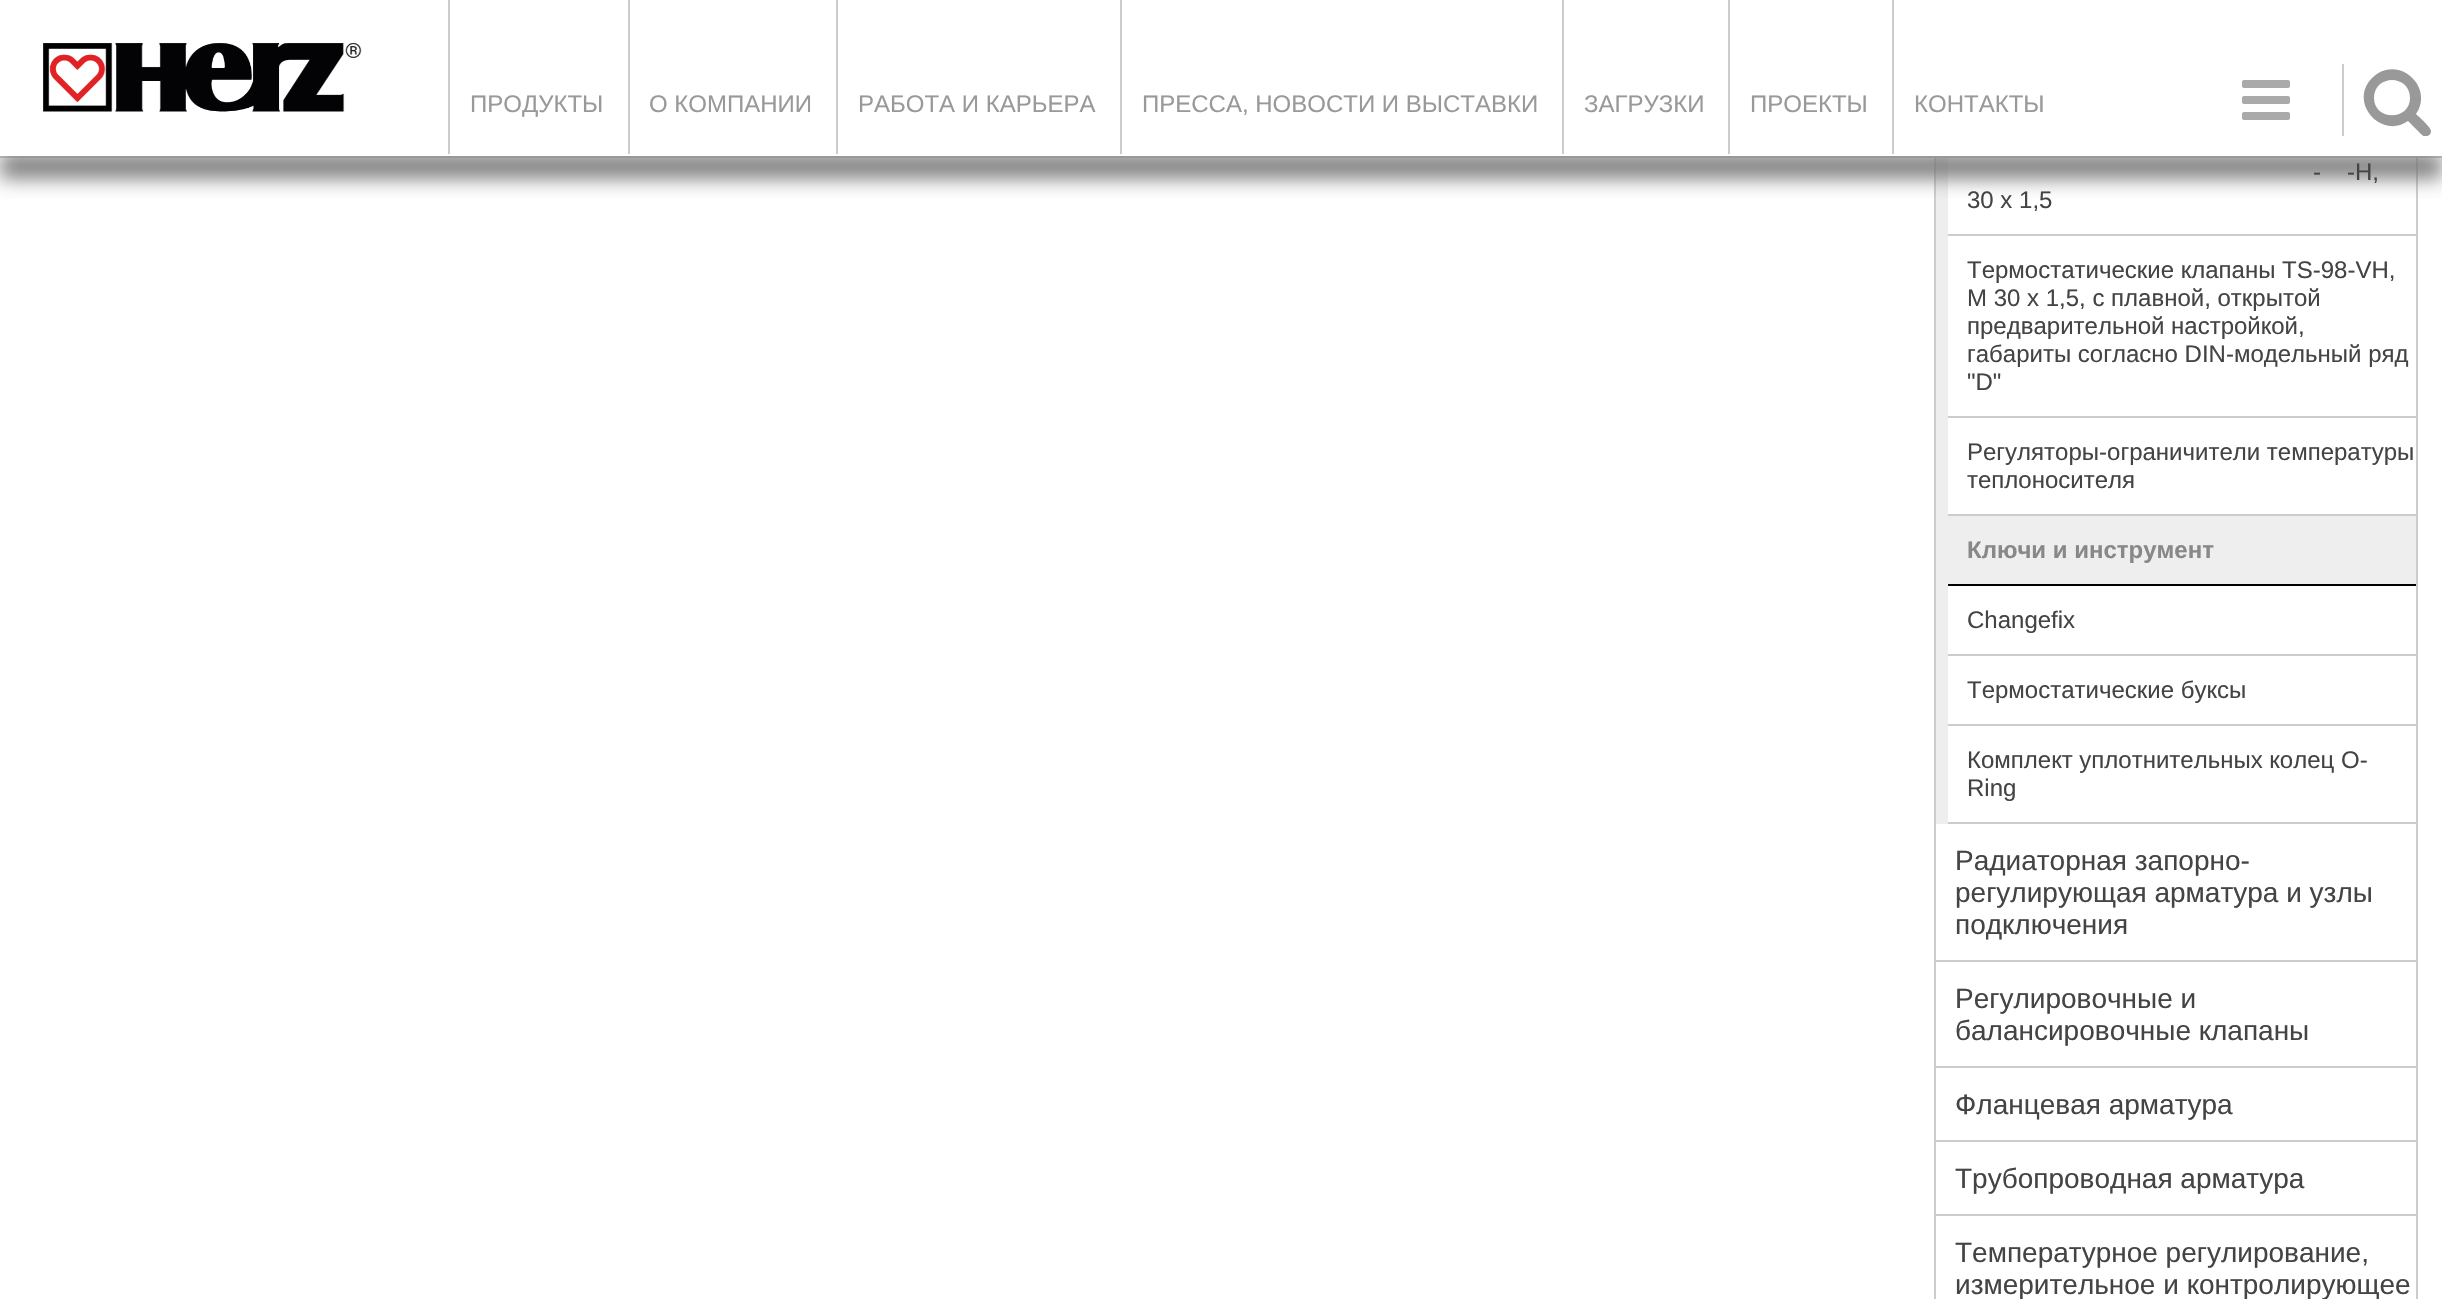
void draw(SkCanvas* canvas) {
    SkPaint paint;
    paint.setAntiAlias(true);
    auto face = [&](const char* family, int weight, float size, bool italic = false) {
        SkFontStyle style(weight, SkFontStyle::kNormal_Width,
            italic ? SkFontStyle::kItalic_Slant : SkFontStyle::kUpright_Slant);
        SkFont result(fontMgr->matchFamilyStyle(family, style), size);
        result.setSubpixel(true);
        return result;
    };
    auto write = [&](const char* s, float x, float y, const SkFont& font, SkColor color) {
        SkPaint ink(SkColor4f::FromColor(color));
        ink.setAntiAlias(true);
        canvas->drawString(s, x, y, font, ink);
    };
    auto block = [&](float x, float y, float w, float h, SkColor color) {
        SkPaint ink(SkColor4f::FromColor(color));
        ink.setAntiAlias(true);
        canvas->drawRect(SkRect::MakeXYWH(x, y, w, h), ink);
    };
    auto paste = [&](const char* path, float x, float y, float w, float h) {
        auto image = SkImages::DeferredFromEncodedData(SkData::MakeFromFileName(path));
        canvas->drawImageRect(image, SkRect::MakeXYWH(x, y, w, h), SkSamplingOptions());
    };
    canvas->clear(SK_ColorWHITE);
    block(0, 156, 2442, 2, SkColorSetRGB(204, 204, 204));
    paste("pic1.png", 43, 43, 319, 69);
    block(2416, 158, 2, 1141, SkColorSetRGB(204, 204, 204));
    block(1934, 158, 2, 1141, SkColorSetRGB(204, 204, 204));
    block(1936, 158, 12, 666, SkColorSetRGB(238, 238, 238));
    canvas->save();
    canvas->clipRect(SkRect::MakeXYWH(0, 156, 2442, 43));
    paint.setColor(SkColorSetRGB(119, 119, 119));
    paint.setMaskFilter(SkMaskFilter::MakeBlur(kNormal_SkBlurStyle, 10));
    canvas->drawRect(SkRect::MakeXYWH(0, 154, 2442, 24), paint);
    paint.setMaskFilter(nullptr);
    canvas->restore();
    block(448, 0, 2, 154, SkColorSetRGB(204, 204, 204));
    auto kFont1 = face("Liberation Sans", 400, 24);
    write("ПРОДУКТЫ", 470, 112, kFont1, SkColorSetRGB(153, 153, 153));
    block(628, 0, 2, 154, SkColorSetRGB(204, 204, 204));
    write("О КОМПАНИИ", 649, 112, kFont1, SkColorSetRGB(153, 153, 153));
    block(836, 0, 2, 154, SkColorSetRGB(204, 204, 204));
    write("РАБОТА И КАРЬЕРА", 858, 112, kFont1, SkColorSetRGB(153, 153, 153));
    block(1120, 0, 2, 154, SkColorSetRGB(204, 204, 204));
    write("ПРЕССА, НОВОСТИ И ВЫСТАВКИ", 1142, 112, kFont1, SkColorSetRGB(153, 153, 153));
    block(1562, 0, 2, 154, SkColorSetRGB(204, 204, 204));
    write("ЗАГРУЗКИ", 1584, 112, kFont1, SkColorSetRGB(153, 153, 153));
    block(1728, 0, 2, 154, SkColorSetRGB(204, 204, 204));
    write("ПРОЕКТЫ", 1750, 112, kFont1, SkColorSetRGB(153, 153, 153));
    block(1892, 0, 2, 154, SkColorSetRGB(204, 204, 204));
    write("КОНТАКТЫ", 1914, 112, kFont1, SkColorSetRGB(153, 153, 153));
    paste("pic2.png", 2242, 80, 48, 40);
    block(2342, 64, 2, 72, SkColorSetRGB(204, 204, 204));
    paint.setColor(SkColorSetRGB(153, 153, 153));
    canvas->drawPath(SkPathBuilder().moveTo(2410, 98).cubicTo(2410, 121, 2374, 121, 2374, 98).cubicTo(2374, 74, 2410, 74, 2410, 98).close().moveTo(2431, 131).cubicTo(2431, 127, 2419, 117, 2416, 114).cubicTo(2435, 86, 2397, 53, 2372, 78).cubicTo(2348, 102, 2381, 140, 2408, 121).lineTo(2422, 135).cubicTo(2423, 136, 2424, 136, 2426, 136).cubicTo(2429, 136, 2431, 134, 2431, 131).close().detach(), paint);
    block(1948, 234, 468, 2, SkColorSetRGB(204, 204, 204));
    write("-", 2313, 180, kFont1, SkColorSetRGB(68, 68, 68));
    write("-Н,", 2347, 180, kFont1, SkColorSetRGB(68, 68, 68));
    write("30 х 1,5", 1967, 208, kFont1, SkColorSetRGB(68, 68, 68));
    block(1948, 416, 468, 2, SkColorSetRGB(204, 204, 204));
    write("Термостатические клапаны TS-98-VН,", 1967, 278, kFont1, SkColorSetRGB(68, 68, 68));
    write("М 30 х 1,5, с плавной, открытой", 1967, 306, kFont1, SkColorSetRGB(68, 68, 68));
    write("предварительной настройкой,", 1967, 334, kFont1, SkColorSetRGB(68, 68, 68));
    write("габариты согласно DIN-модельный ряд", 1967, 362, kFont1, SkColorSetRGB(68, 68, 68));
    write("\"D\"", 1967, 390, kFont1, SkColorSetRGB(68, 68, 68));
    block(1948, 514, 468, 2, SkColorSetRGB(204, 204, 204));
    write("Регуляторы-ограничители температуры", 1967, 460, kFont1, SkColorSetRGB(68, 68, 68));
    write("теплоносителя", 1967, 488, kFont1, SkColorSetRGB(68, 68, 68));
    block(1948, 516, 468, 68, SkColorSetRGB(238, 238, 238));
    block(1948, 584, 468, 2, SK_ColorBLACK);
    auto kFont2 = face("Liberation Sans", 700, 24);
    write("Ключи и инструмент", 1967, 558, kFont2, SkColorSetRGB(136, 136, 136));
    block(1948, 654, 468, 2, SkColorSetRGB(204, 204, 204));
    write("Changefix", 1967, 628, kFont1, SkColorSetRGB(68, 68, 68));
    block(1948, 724, 468, 2, SkColorSetRGB(204, 204, 204));
    write("Термостатические буксы", 1967, 698, kFont1, SkColorSetRGB(68, 68, 68));
    block(1948, 822, 468, 2, SkColorSetRGB(204, 204, 204));
    write("Комплект уплотнительных колец O-", 1967, 768, kFont1, SkColorSetRGB(68, 68, 68));
    write("Ring", 1967, 796, kFont1, SkColorSetRGB(68, 68, 68));
    block(1936, 960, 480, 2, SkColorSetRGB(204, 204, 204));
    auto kFont3 = face("Liberation Sans", 400, 28);
    write("Радиаторная запорно-", 1955, 870, kFont3, SkColorSetRGB(68, 68, 68));
    write("регулирующая арматура и узлы", 1955, 902, kFont3, SkColorSetRGB(68, 68, 68));
    write("подключения", 1955, 934, kFont3, SkColorSetRGB(68, 68, 68));
    block(1936, 1066, 480, 2, SkColorSetRGB(204, 204, 204));
    write("Регулировочные и", 1955, 1008, kFont3, SkColorSetRGB(68, 68, 68));
    write("балансировочные клапаны", 1955, 1040, kFont3, SkColorSetRGB(68, 68, 68));
    block(1936, 1140, 480, 2, SkColorSetRGB(204, 204, 204));
    write("Фланцевая арматура", 1955, 1114, kFont3, SkColorSetRGB(68, 68, 68));
    block(1936, 1214, 480, 2, SkColorSetRGB(204, 204, 204));
    write("Трубопроводная арматура", 1955, 1188, kFont3, SkColorSetRGB(68, 68, 68));
    write("Температурное регулирование,", 1955, 1262, kFont3, SkColorSetRGB(68, 68, 68));
    write("измерительное и контролирующее", 1955, 1294, kFont3, SkColorSetRGB(68, 68, 68));
}
